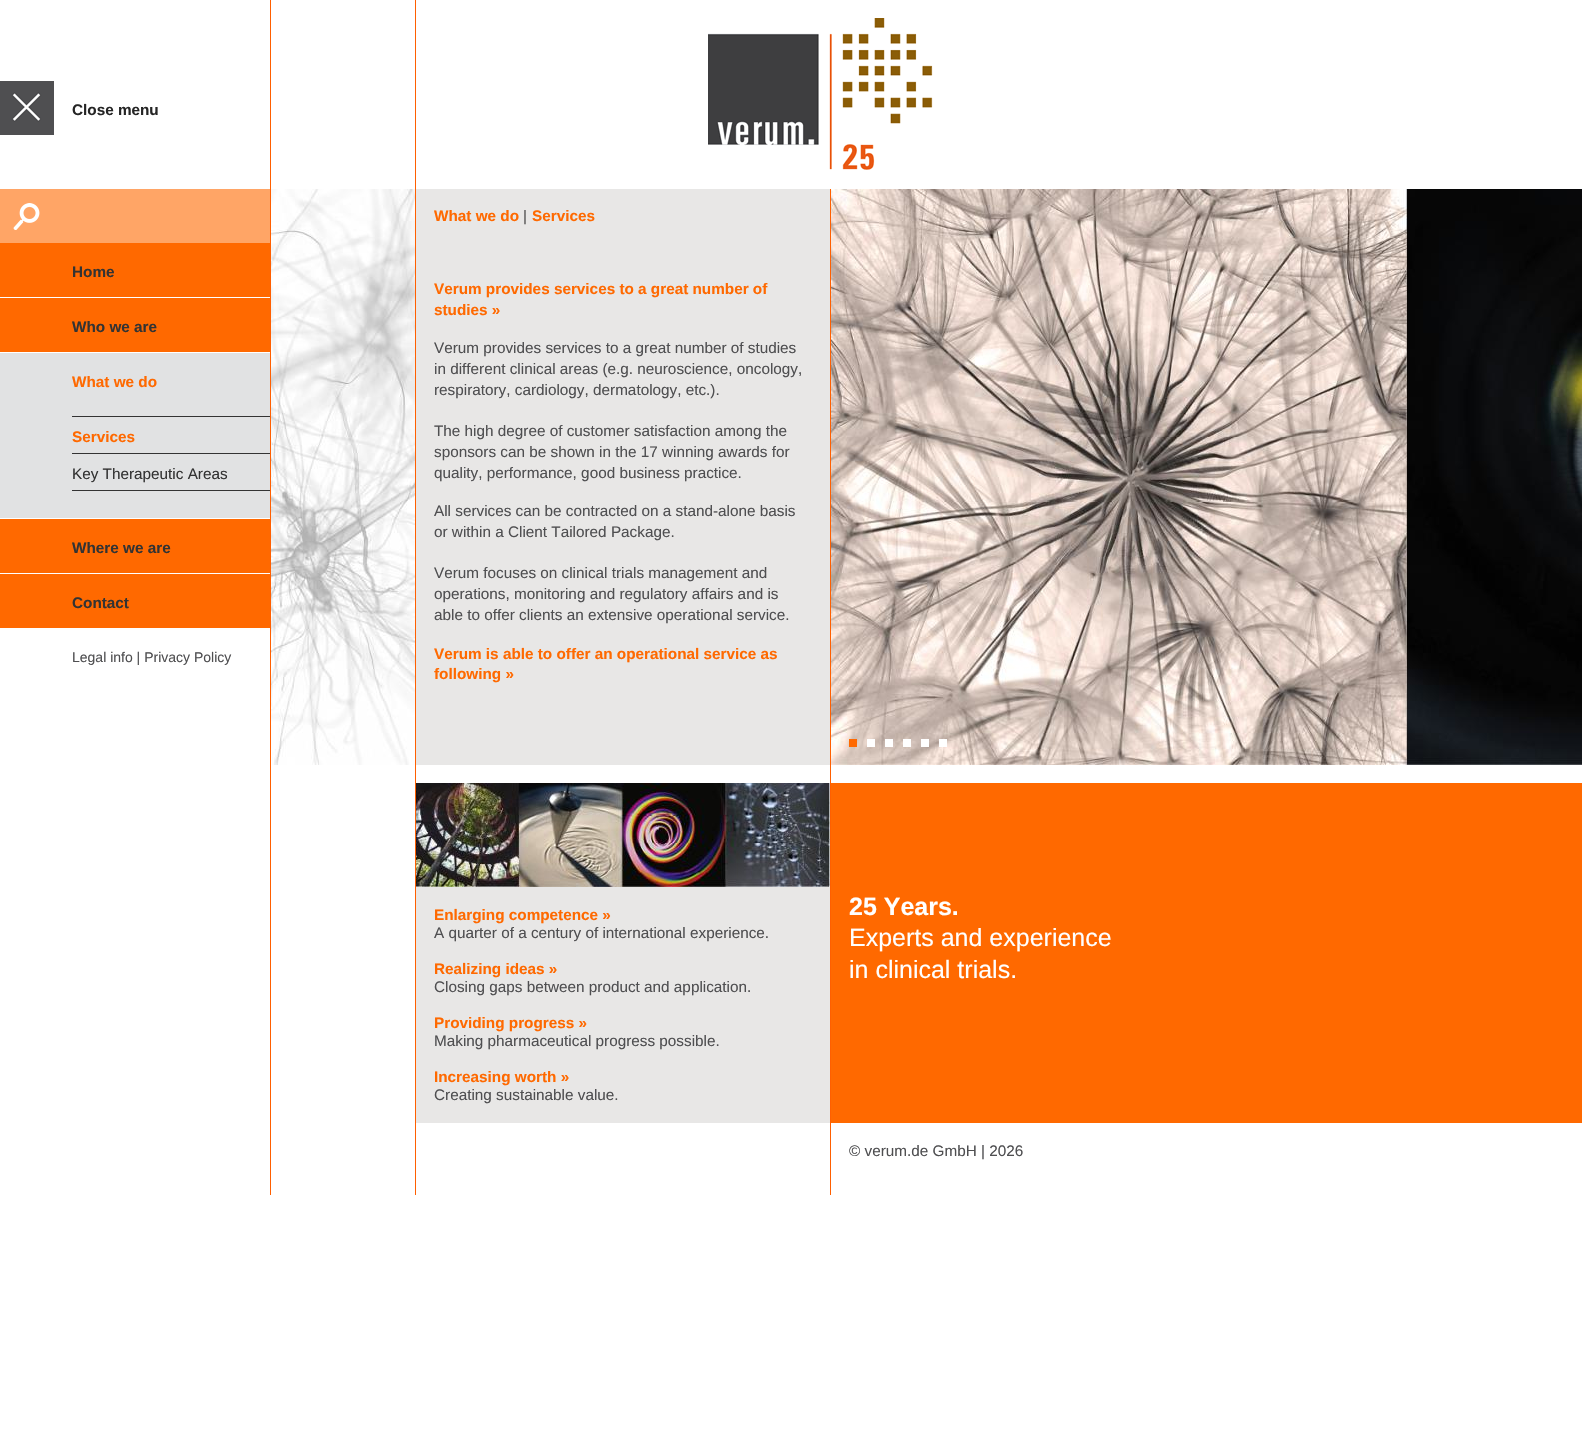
void draw(SkCanvas* canvas) {
    SkPaint paint;
    paint.setAntiAlias(true);
    auto face = [&](const char* family, int weight, float size, bool italic = false) {
        SkFontStyle style(weight, SkFontStyle::kNormal_Width,
            italic ? SkFontStyle::kItalic_Slant : SkFontStyle::kUpright_Slant);
        SkFont result(fontMgr->matchFamilyStyle(family, style), size);
        result.setSubpixel(true);
        return result;
    };
    auto write = [&](const char* s, float x, float y, const SkFont& font, SkColor color) {
        SkPaint ink(SkColor4f::FromColor(color));
        ink.setAntiAlias(true);
        canvas->drawString(s, x, y, font, ink);
    };
    auto block = [&](float x, float y, float w, float h, SkColor color) {
        SkPaint ink(SkColor4f::FromColor(color));
        ink.setAntiAlias(true);
        canvas->drawRect(SkRect::MakeXYWH(x, y, w, h), ink);
    };
    auto paste = [&](const char* path, float x, float y, float w, float h) {
        auto image = SkImages::DeferredFromEncodedData(SkData::MakeFromFileName(path));
        canvas->drawImageRect(image, SkRect::MakeXYWH(x, y, w, h), SkSamplingOptions());
    };
    canvas->clear(SK_ColorWHITE);
    block(270, 0, 1, 1195, SkColorSetRGB(255, 95, 0));
    paste("pic1.png", 0, 81, 54, 54);
    auto kFont1 = face("Liberation Sans", 700, 15.3f);
    write("Close menu", 72, 115, kFont1, SkColorSetRGB(37, 37, 37));
    block(0, 189, 270, 54, SkColorSetRGB(255, 165, 102));
    paste("pic2.png", 13, 203, 27, 27);
    block(0, 243, 270, 54, SkColorSetRGB(255, 105, 0));
    write("Home", 72, 277, kFont1, SkColorSetRGB(51, 51, 51));
    block(0, 298, 270, 54, SkColorSetRGB(255, 105, 0));
    write("Who we are", 72, 332, kFont1, SkColorSetRGB(51, 51, 51));
    block(0, 353, 270, 165, SkColorSetRGB(225, 226, 227));
    write("What we do", 72, 387, kFont1, SkColorSetRGB(255, 105, 0));
    block(72, 416, 198, 1, SkColorSetRGB(51, 51, 51));
    write("Services", 72, 442, kFont1, SkColorSetRGB(255, 105, 0));
    block(72, 453, 198, 1, SkColorSetRGB(51, 51, 51));
    block(72, 490, 198, 1, SkColorSetRGB(51, 51, 51));
    auto kFont2 = face("Liberation Sans", 400, 15.3f);
    write("Key Therapeutic Areas", 72, 479, kFont2, SkColorSetRGB(51, 51, 51));
    block(0, 519, 270, 54, SkColorSetRGB(255, 105, 0));
    write("Where we are", 72, 553, kFont1, SkColorSetRGB(51, 51, 51));
    block(0, 574, 270, 54, SkColorSetRGB(255, 105, 0));
    write("Contact", 72, 608, kFont1, SkColorSetRGB(51, 51, 51));
    auto kFont3 = face("Liberation Sans", 400, 14);
    write("Legal info | Privacy Policy", 72, 662, kFont3, SkColorSetRGB(79, 79, 81));
    block(415, 0, 1, 1195, SkColorSetRGB(255, 95, 0));
    paste("pic3.png", 271, 189, 144, 576);
    block(830, 189, 1, 1006, SkColorSetRGB(255, 95, 0));
    paste("pic4.png", 708, 18, 225, 152);
    block(416, 189, 414, 576, SkColorSetRGB(232, 231, 230));
    write("What we do", 434, 221, kFont1, SkColorSetRGB(255, 105, 0));
    write("|", 523, 221, kFont2, SkColorSetRGB(85, 85, 85));
    write("Services", 532, 221, kFont1, SkColorSetRGB(255, 105, 0));
    write("Verum provides services to a great number of", 434, 294, kFont1, SkColorSetRGB(255, 105, 0));
    write("studies »", 434, 315, kFont1, SkColorSetRGB(255, 105, 0));
    write("Verum provides services to a great number of studies", 434, 353, kFont2, SkColorSetRGB(79, 79, 81));
    write("in different clinical areas (e.g. neuroscience, oncology,", 434, 374, kFont2, SkColorSetRGB(79, 79, 81));
    write("respiratory, cardiology, dermatology, etc.).", 434, 395, kFont2, SkColorSetRGB(79, 79, 81));
    write("The high degree of customer satisfaction among the", 434, 436, kFont2, SkColorSetRGB(79, 79, 81));
    write("sponsors can be shown in the 17 winning awards for", 434, 457, kFont2, SkColorSetRGB(79, 79, 81));
    write("quality, performance, good business practice.", 434, 478, kFont2, SkColorSetRGB(79, 79, 81));
    write("All services can be contracted on a stand-alone basis", 434, 516, kFont2, SkColorSetRGB(79, 79, 81));
    write("or within a Client Tailored Package.", 434, 537, kFont2, SkColorSetRGB(79, 79, 81));
    write("Verum focuses on clinical trials management and", 434, 578, kFont2, SkColorSetRGB(79, 79, 81));
    write("operations, monitoring and regulatory affairs and is", 434, 599, kFont2, SkColorSetRGB(79, 79, 81));
    write("able to offer clients an extensive operational service.", 434, 620, kFont2, SkColorSetRGB(79, 79, 81));
    write("Verum is able to offer an operational service as", 434, 659, kFont1, SkColorSetRGB(255, 105, 0));
    write("following »", 434, 679, kFont1, SkColorSetRGB(255, 105, 0));
    block(416, 887, 414, 236, SkColorSetRGB(232, 231, 230));
    paste("pic5.png", 416, 783, 414, 104);
    write("Enlarging competence »", 434, 920, kFont1, SkColorSetRGB(255, 105, 0));
    write("A quarter of a century of international experience.", 434, 938, kFont2, SkColorSetRGB(79, 79, 81));
    write("Realizing ideas »", 434, 974, kFont1, SkColorSetRGB(255, 105, 0));
    write("Closing gaps between product and application.", 434, 992, kFont2, SkColorSetRGB(79, 79, 81));
    write("Providing progress »", 434, 1028, kFont1, SkColorSetRGB(255, 105, 0));
    write("Making pharmaceutical progress possible.", 434, 1046, kFont2, SkColorSetRGB(79, 79, 81));
    write("Increasing worth »", 434, 1082, kFont1, SkColorSetRGB(255, 105, 0));
    write("Creating sustainable value.", 434, 1100, kFont2, SkColorSetRGB(79, 79, 81));
    paste("pic6.png", 831, 189, 751, 576);
    block(849, 739, 8, 8, SkColorSetRGB(255, 105, 0));
    block(867, 739, 8, 8, SK_ColorWHITE);
    block(885, 739, 8, 8, SK_ColorWHITE);
    block(903, 739, 8, 8, SK_ColorWHITE);
    block(921, 739, 8, 8, SK_ColorWHITE);
    block(939, 739, 8, 8, SK_ColorWHITE);
    block(831, 783, 751, 340, SkColorSetRGB(255, 105, 0));
    auto kFont4 = face("Liberation Sans", 700, 25);
    write("25 Years.", 849, 915, kFont4, SK_ColorWHITE);
    auto kFont5 = face("Liberation Sans", 400, 25);
    write("Experts and experience", 849, 946, kFont5, SK_ColorWHITE);
    write("in clinical trials.", 849, 978, kFont5, SK_ColorWHITE);
    write("© verum.de GmbH | 2026", 849, 1156, kFont2, SkColorSetRGB(79, 79, 81));
}
